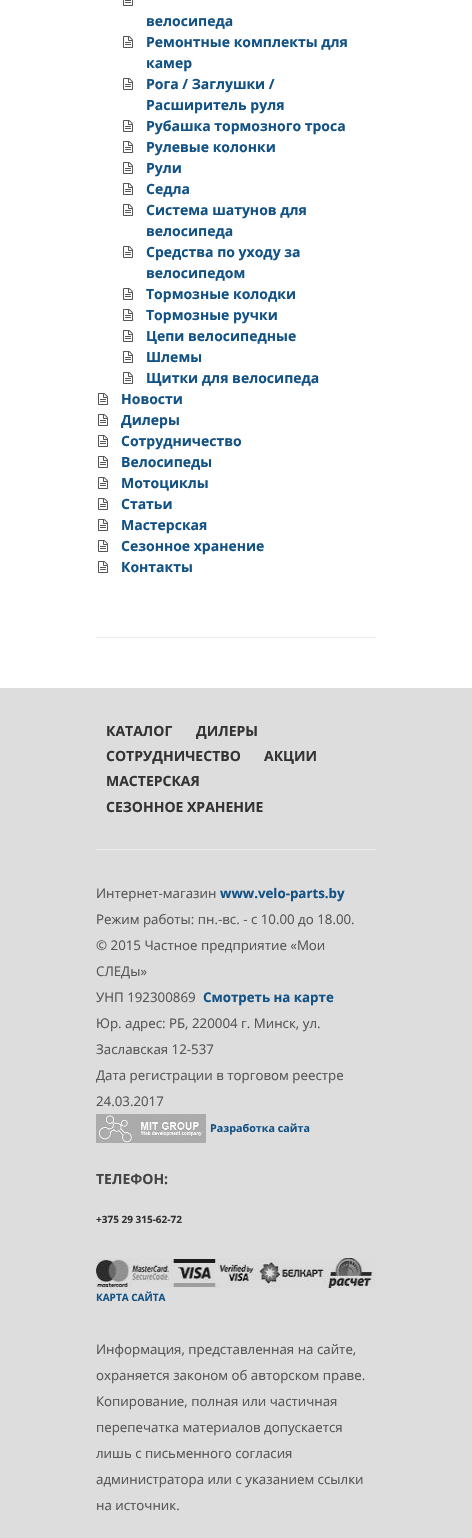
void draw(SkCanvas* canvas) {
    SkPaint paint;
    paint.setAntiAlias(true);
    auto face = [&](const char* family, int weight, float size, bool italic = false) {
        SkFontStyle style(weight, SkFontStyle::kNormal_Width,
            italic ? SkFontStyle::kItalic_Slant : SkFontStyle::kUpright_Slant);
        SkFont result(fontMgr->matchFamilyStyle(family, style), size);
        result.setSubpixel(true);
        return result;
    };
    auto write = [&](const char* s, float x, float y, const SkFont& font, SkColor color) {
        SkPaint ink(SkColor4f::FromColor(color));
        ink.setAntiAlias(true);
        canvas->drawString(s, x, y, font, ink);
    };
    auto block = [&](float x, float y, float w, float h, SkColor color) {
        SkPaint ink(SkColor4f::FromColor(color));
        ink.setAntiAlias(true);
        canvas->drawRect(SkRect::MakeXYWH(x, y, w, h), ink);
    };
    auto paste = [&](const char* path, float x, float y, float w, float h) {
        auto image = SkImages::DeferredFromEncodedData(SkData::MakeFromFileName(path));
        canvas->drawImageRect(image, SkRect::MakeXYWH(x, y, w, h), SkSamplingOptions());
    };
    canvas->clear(SK_ColorWHITE);
    block(96, 637, 280, 1, SkColorSetRGB(238, 238, 238));
    paste("pic1.png", 123, 0, 10, 6);
    auto kFont1 = face("Open Sans", 700, 14);
    write("велосипеда", 146, 26, kFont1, SkColorSetRGB(19, 82, 133));
    paste("pic2.png", 123, 36, 10, 12);
    write("Ремонтные комплекты для", 146, 47, kFont1, SkColorSetRGB(19, 82, 133));
    write("камер", 146, 68, kFont1, SkColorSetRGB(19, 82, 133));
    paste("pic2.png", 123, 78, 10, 12);
    write("Рога / Заглушки /", 146, 89, kFont1, SkColorSetRGB(19, 82, 133));
    write("Расширитель руля", 146, 110, kFont1, SkColorSetRGB(19, 82, 133));
    paste("pic2.png", 123, 120, 10, 12);
    write("Рубашка тормозного троса", 146, 131, kFont1, SkColorSetRGB(19, 82, 133));
    paste("pic2.png", 123, 141, 10, 12);
    write("Рулевые колонки", 146, 152, kFont1, SkColorSetRGB(19, 82, 133));
    paste("pic2.png", 123, 162, 10, 12);
    write("Рули", 146, 173, kFont1, SkColorSetRGB(19, 82, 133));
    paste("pic2.png", 123, 183, 10, 12);
    write("Седла", 146, 194, kFont1, SkColorSetRGB(19, 82, 133));
    paste("pic2.png", 123, 204, 10, 12);
    write("Система шатунов для", 146, 215, kFont1, SkColorSetRGB(19, 82, 133));
    write("велосипеда", 146, 236, kFont1, SkColorSetRGB(19, 82, 133));
    paste("pic2.png", 123, 246, 10, 12);
    write("Средства по уходу за", 146, 257, kFont1, SkColorSetRGB(19, 82, 133));
    write("велосипедом", 146, 278, kFont1, SkColorSetRGB(19, 82, 133));
    paste("pic2.png", 123, 288, 10, 12);
    write("Тормозные колодки", 146, 299, kFont1, SkColorSetRGB(19, 82, 133));
    paste("pic2.png", 123, 309, 10, 12);
    write("Тормозные ручки", 146, 320, kFont1, SkColorSetRGB(19, 82, 133));
    paste("pic2.png", 123, 330, 10, 12);
    write("Цепи велосипедные", 146, 341, kFont1, SkColorSetRGB(19, 82, 133));
    paste("pic2.png", 123, 351, 10, 12);
    write("Шлемы", 146, 362, kFont1, SkColorSetRGB(19, 82, 133));
    paste("pic2.png", 123, 372, 10, 12);
    write("Щитки для велосипеда", 146, 383, kFont1, SkColorSetRGB(19, 82, 133));
    paste("pic2.png", 98, 393, 10, 12);
    write("Новости", 121, 404, kFont1, SkColorSetRGB(19, 82, 133));
    paste("pic2.png", 98, 414, 10, 12);
    write("Дилеры", 121, 425, kFont1, SkColorSetRGB(19, 82, 133));
    paste("pic2.png", 98, 435, 10, 12);
    write("Сотрудничество", 121, 446, kFont1, SkColorSetRGB(19, 82, 133));
    paste("pic2.png", 98, 456, 10, 12);
    write("Велосипеды", 121, 467, kFont1, SkColorSetRGB(19, 82, 133));
    paste("pic2.png", 98, 477, 10, 12);
    write("Мотоциклы", 121, 488, kFont1, SkColorSetRGB(19, 82, 133));
    paste("pic2.png", 98, 498, 10, 12);
    write("Статьи", 121, 509, kFont1, SkColorSetRGB(19, 82, 133));
    paste("pic2.png", 98, 519, 10, 12);
    write("Мастерская", 121, 530, kFont1, SkColorSetRGB(19, 82, 133));
    paste("pic2.png", 98, 540, 10, 12);
    write("Сезонное хранение", 121, 551, kFont1, SkColorSetRGB(19, 82, 133));
    paste("pic2.png", 98, 561, 10, 12);
    write("Контакты", 121, 572, kFont1, SkColorSetRGB(19, 82, 133));
    block(0, 688, 472, 850, SkColorSetRGB(221, 221, 221));
    write("КАТАЛОГ", 106, 736, kFont1, SkColorSetRGB(51, 51, 51));
    write("ДИЛЕРЫ", 196, 736, kFont1, SkColorSetRGB(51, 51, 51));
    write("СОТРУДНИЧЕСТВО", 106, 761, kFont1, SkColorSetRGB(51, 51, 51));
    write("АКЦИИ", 264, 761, kFont1, SkColorSetRGB(51, 51, 51));
    write("МАСТЕРСКАЯ", 106, 786, kFont1, SkColorSetRGB(51, 51, 51));
    write("СЕЗОННОЕ ХРАНЕНИЕ", 106, 812, kFont1, SkColorSetRGB(51, 51, 51));
    block(96, 849, 280, 1, SkColorSetRGB(238, 238, 238));
    auto kFont2 = face("Open Sans", 400, 13.3f);
    write("Интернет-магазин", 96, 898, kFont2, SkColorSetRGB(85, 85, 85));
    auto kFont3 = face("Open Sans", 700, 13.3f);
    write("www.velo-parts.by", 220, 898, kFont3, SkColorSetRGB(19, 82, 133));
    write("Режим работы: пн.-вс. - с 10.00 до 18.00.", 96, 924, kFont2, SkColorSetRGB(85, 85, 85));
    write("© 2015 Частное предприятие «Мои", 96, 950, kFont2, SkColorSetRGB(85, 85, 85));
    write("СЛЕДы»", 96, 976, kFont2, SkColorSetRGB(85, 85, 85));
    write("УНП 192300869", 96, 1002, kFont2, SkColorSetRGB(85, 85, 85));
    write("Смотреть на карте", 203, 1002, kFont3, SkColorSetRGB(19, 82, 133));
    write("Юр. адрес: РБ, 220004 г. Минск, ул.", 96, 1028, kFont2, SkColorSetRGB(85, 85, 85));
    write("Заславская 12-537", 96, 1054, kFont2, SkColorSetRGB(85, 85, 85));
    write("Дата регистрации в торговом реестре", 96, 1080, kFont2, SkColorSetRGB(85, 85, 85));
    write("24.03.2017", 96, 1106, kFont2, SkColorSetRGB(85, 85, 85));
    paste("pic3.png", 96, 1114, 110, 29);
    auto kFont4 = face("Open Sans", 700, 10.75f);
    write("Разработка сайта", 210, 1132, kFont4, SkColorSetRGB(19, 82, 133));
    write("ТЕЛЕФОН:", 96, 1184, kFont1, SkColorSetRGB(68, 68, 68));
    auto kFont5 = face("Open Sans", 700, 10);
    write("+375 29 315-62-72", 96, 1223, kFont5, SkColorSetRGB(51, 51, 51));
    paste("pic4.png", 96, 1258, 280, 30);
    write("КАРТА САЙТА", 96, 1301, kFont5, SkColorSetRGB(19, 82, 133));
    write("Информация, представленная на сайте,", 96, 1354, kFont2, SkColorSetRGB(85, 85, 85));
    write("охраняется законом об авторском праве.", 96, 1380, kFont2, SkColorSetRGB(85, 85, 85));
    write("Копирование, полная или частичная", 96, 1406, kFont2, SkColorSetRGB(85, 85, 85));
    write("перепечатка материалов допускается", 96, 1432, kFont2, SkColorSetRGB(85, 85, 85));
    write("лишь с письменного согласия", 96, 1458, kFont2, SkColorSetRGB(85, 85, 85));
    write("администратора или с указанием ссылки", 96, 1484, kFont2, SkColorSetRGB(85, 85, 85));
    write("на источник.", 96, 1510, kFont2, SkColorSetRGB(85, 85, 85));
}
